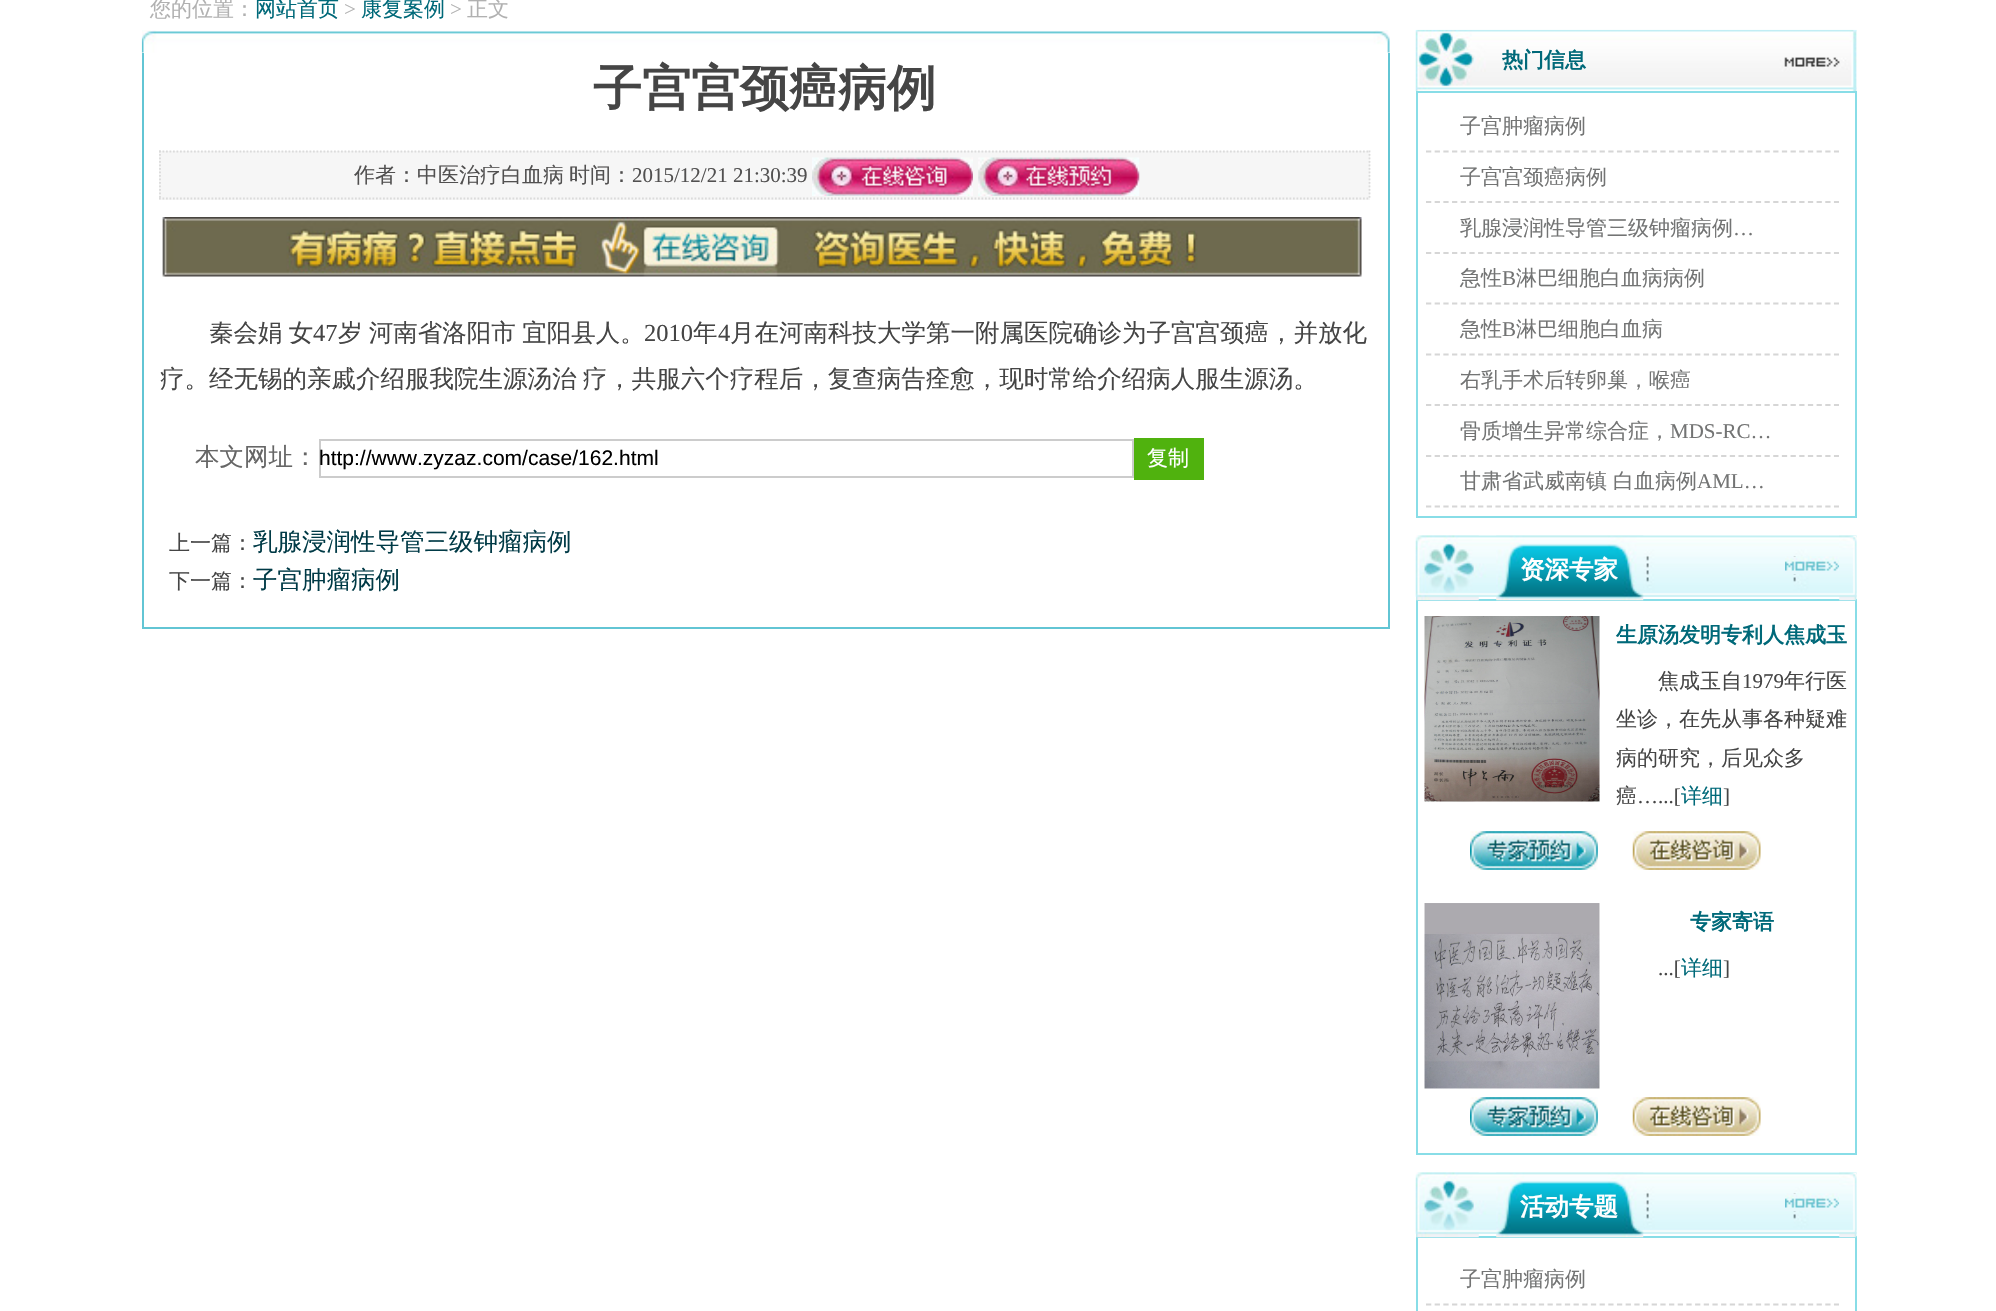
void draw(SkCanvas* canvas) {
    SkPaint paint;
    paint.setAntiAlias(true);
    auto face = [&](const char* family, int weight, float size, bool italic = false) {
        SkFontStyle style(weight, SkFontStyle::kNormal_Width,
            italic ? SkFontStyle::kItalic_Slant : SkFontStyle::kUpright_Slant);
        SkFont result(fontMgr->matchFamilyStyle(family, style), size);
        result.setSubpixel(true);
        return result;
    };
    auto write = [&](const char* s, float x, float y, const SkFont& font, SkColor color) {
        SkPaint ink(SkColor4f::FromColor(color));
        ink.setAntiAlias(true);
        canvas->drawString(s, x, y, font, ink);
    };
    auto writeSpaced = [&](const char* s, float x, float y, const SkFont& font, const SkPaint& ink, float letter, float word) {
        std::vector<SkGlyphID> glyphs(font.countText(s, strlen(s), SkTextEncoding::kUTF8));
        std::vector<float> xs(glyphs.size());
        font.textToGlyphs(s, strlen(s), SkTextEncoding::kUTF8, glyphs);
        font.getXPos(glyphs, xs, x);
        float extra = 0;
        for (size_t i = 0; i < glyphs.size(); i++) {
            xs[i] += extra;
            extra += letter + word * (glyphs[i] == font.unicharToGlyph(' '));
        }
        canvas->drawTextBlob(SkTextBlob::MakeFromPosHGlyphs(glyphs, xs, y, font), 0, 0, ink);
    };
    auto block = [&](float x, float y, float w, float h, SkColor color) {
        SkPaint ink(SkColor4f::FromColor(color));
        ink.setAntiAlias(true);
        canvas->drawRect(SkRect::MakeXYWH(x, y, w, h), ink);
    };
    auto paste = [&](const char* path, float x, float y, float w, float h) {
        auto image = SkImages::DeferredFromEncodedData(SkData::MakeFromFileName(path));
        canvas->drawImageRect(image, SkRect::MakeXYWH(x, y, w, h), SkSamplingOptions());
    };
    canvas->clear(SK_ColorWHITE);
    auto kFont1 = face("WenQuanYi Zen Hei", 500, 21);
    write("您的位置：", 150, 16, kFont1, SkColorSetRGB(177, 177, 177));
    write("网站首页", 255, 16, kFont1, SkColorSetRGB(0, 105, 121));
    auto kFont2 = face("Liberation Serif", 400, 21);
    write(">", 344, 16, kFont2, SkColorSetRGB(177, 177, 177));
    write("康复案例", 361, 16, kFont1, SkColorSetRGB(0, 105, 121));
    write(">", 450, 16, kFont2, SkColorSetRGB(177, 177, 177));
    write("正文", 467, 16, kFont1, SkColorSetRGB(177, 177, 177));
    paste("pic1.png", 141, 30, 1249, 23);
    block(1388, 53, 2, 575, SkColorSetRGB(98, 197, 212));
    block(142, 627, 1248, 2, SkColorSetRGB(98, 197, 212));
    block(142, 53, 2, 575, SkColorSetRGB(98, 197, 212));
    auto kFont3 = face("WenQuanYi Zen Hei", 700, 49);
    write("子宫宫颈癌病例", 593, 105, kFont3, SkColorSetRGB(69, 69, 69));
    block(159, 151, 1211, 49, SkColorSetRGB(246, 246, 246));
    paint.setStyle(SkPaint::kStroke_Style);
    paint.setStrokeWidth(1.8f);
    paint.setColor(SkColorSetRGB(219, 219, 219));
    paint.setPathEffect(SkDashPathEffect::Make({{1.75f, 1.75f}}, 0));
    canvas->drawPath(SkPathBuilder().moveTo(159, 151.5f).lineTo(1370, 151.5f).detach(), paint);
    paint.setPathEffect(nullptr);
    paint.setPathEffect(SkDashPathEffect::Make({{1.75f, 1.75f}}, 0));
    canvas->drawPath(SkPathBuilder().moveTo(1369.5f, 150.5f).lineTo(1369.5f, 199.5f).detach(), paint);
    paint.setPathEffect(nullptr);
    paint.setPathEffect(SkDashPathEffect::Make({{1.75f, 1.75f}}, 0));
    canvas->drawPath(SkPathBuilder().moveTo(159, 198.5f).lineTo(1370, 198.5f).detach(), paint);
    paint.setPathEffect(nullptr);
    paint.setPathEffect(SkDashPathEffect::Make({{1.75f, 1.75f}}, 0));
    canvas->drawPath(SkPathBuilder().moveTo(160, 150.5f).lineTo(160, 199.5f).detach(), paint);
    paint.setPathEffect(nullptr);
    write("作者：中医治疗白血病", 354, 182, kFont1, SkColorSetRGB(81, 80, 80));
    write("时间：", 569, 182, kFont1, SkColorSetRGB(81, 80, 80));
    write("2015/12/21 21:30:39", 632, 182, kFont2, SkColorSetRGB(81, 80, 80));
    paste("pic2.png", 812, 157, 161, 39);
    paste("pic3.png", 978, 157, 162, 39);
    paste("pic4.png", 162, 217, 1200, 60);
    auto kFont4 = face("WenQuanYi Zen Hei", 500, 24.5f);
    paint.setStyle(SkPaint::kFill_Style);
    paint.setColor(SkColorSetRGB(69, 69, 69));
    writeSpaced("秦会娟 女", 209, 341, kFont4, paint, 0, -1);
    auto kFont5 = face("Liberation Serif", 400, 24.5f);
    write("47", 313, 341, kFont5, SkColorSetRGB(69, 69, 69));
    writeSpaced("岁 河南省洛阳市 宜阳县人。", 338, 341, kFont4, paint, 0, -1);
    write("2010", 644, 341, kFont5, SkColorSetRGB(69, 69, 69));
    write("年", 693, 341, kFont4, SkColorSetRGB(69, 69, 69));
    write("4", 718, 341, kFont5, SkColorSetRGB(69, 69, 69));
    write("月在河南科技大学第一附属医院确诊为子宫宫颈癌，并放化", 730, 341, kFont4, SkColorSetRGB(69, 69, 69));
    writeSpaced("疗。经无锡的亲戚介绍服我院生源汤治 疗，共服六个疗程后，复查病告痊愈，现时常给介绍病人服生源汤。", 160, 387, kFont4, paint, 0, -1);
    write("本文网址：", 195, 465, kFont4, SkColorSetRGB(102, 102, 102));
    paint.setStyle(SkPaint::kStroke_Style);
    paint.setStrokeWidth(2);
    paint.setColor(SkColorSetRGB(204, 204, 204));
    canvas->drawRect(SkRect::MakeXYWH(320, 440, 813, 37), paint);
    auto kFont6 = face("Liberation Sans", 400, 21);
    write("http://www.zyzaz.com/case/162.html", 319, 465, kFont6, SK_ColorBLACK);
    block(1134, 438, 70, 42, SkColorSetRGB(80, 178, 14));
    write("复制", 1147, 465, kFont1, SK_ColorWHITE);
    write("上一篇：", 169, 550, kFont1, SkColorSetRGB(69, 69, 69));
    write("乳腺浸润性导管三级钟瘤病例", 253, 550, kFont4, SkColorSetRGB(0, 58, 70));
    write("下一篇：", 169, 588, kFont1, SkColorSetRGB(69, 69, 69));
    write("子宫肿瘤病例", 253, 588, kFont4, SkColorSetRGB(0, 58, 70));
    paste("pic5.png", 1415, 29, 442, 62);
    auto kFont7 = face("WenQuanYi Zen Hei", 700, 21);
    write("热门信息", 1502, 67, kFont7, SkColorSetRGB(0, 105, 121));
    paint.setColor(SkColorSetRGB(136, 221, 231));
    canvas->drawRect(SkRect::MakeXYWH(1417, 92, 439, 425), paint);
    paint.setStrokeWidth(1.8f);
    paint.setColor(SkColorSetRGB(214, 214, 214));
    paint.setPathEffect(SkDashPathEffect::Make({{5.25f, 3.43f}}, 0));
    canvas->drawPath(SkPathBuilder().moveTo(1426, 151.5f).lineTo(1839, 151.5f).detach(), paint);
    paint.setPathEffect(nullptr);
    write("子宫肿瘤病例", 1460, 133, kFont1, SkColorSetRGB(115, 116, 116));
    paint.setPathEffect(SkDashPathEffect::Make({{5.25f, 3.43f}}, 0));
    canvas->drawPath(SkPathBuilder().moveTo(1426, 202).lineTo(1839, 202).detach(), paint);
    paint.setPathEffect(nullptr);
    write("子宫宫颈癌病例", 1460, 184, kFont1, SkColorSetRGB(115, 116, 116));
    paint.setPathEffect(SkDashPathEffect::Make({{5.25f, 3.43f}}, 0));
    canvas->drawPath(SkPathBuilder().moveTo(1426, 253).lineTo(1839, 253).detach(), paint);
    paint.setPathEffect(nullptr);
    write("乳腺浸润性导管三级钟瘤病例", 1460, 235, kFont1, SkColorSetRGB(115, 116, 116));
    write("…", 1733, 235, kFont2, SkColorSetRGB(115, 116, 116));
    paint.setPathEffect(SkDashPathEffect::Make({{5.25f, 3.43f}}, 0));
    canvas->drawPath(SkPathBuilder().moveTo(1426, 303.5f).lineTo(1839, 303.5f).detach(), paint);
    paint.setPathEffect(nullptr);
    write("急性", 1460, 285, kFont1, SkColorSetRGB(115, 116, 116));
    write("B", 1502, 285, kFont2, SkColorSetRGB(115, 116, 116));
    write("淋巴细胞白血病病例", 1516, 285, kFont1, SkColorSetRGB(115, 116, 116));
    paint.setPathEffect(SkDashPathEffect::Make({{5.25f, 3.43f}}, 0));
    canvas->drawPath(SkPathBuilder().moveTo(1426, 354.5f).lineTo(1839, 354.5f).detach(), paint);
    paint.setPathEffect(nullptr);
    write("急性", 1460, 336, kFont1, SkColorSetRGB(115, 116, 116));
    write("B", 1502, 336, kFont2, SkColorSetRGB(115, 116, 116));
    write("淋巴细胞白血病", 1516, 336, kFont1, SkColorSetRGB(115, 116, 116));
    paint.setPathEffect(SkDashPathEffect::Make({{5.25f, 3.43f}}, 0));
    canvas->drawPath(SkPathBuilder().moveTo(1426, 405).lineTo(1839, 405).detach(), paint);
    paint.setPathEffect(nullptr);
    write("右乳手术后转卵巢，喉癌", 1460, 387, kFont1, SkColorSetRGB(115, 116, 116));
    paint.setPathEffect(SkDashPathEffect::Make({{5.25f, 3.43f}}, 0));
    canvas->drawPath(SkPathBuilder().moveTo(1426, 456).lineTo(1839, 456).detach(), paint);
    paint.setPathEffect(nullptr);
    write("骨质增生异常综合症，", 1460, 438, kFont1, SkColorSetRGB(115, 116, 116));
    write("MDS-RC…", 1670, 438, kFont2, SkColorSetRGB(115, 116, 116));
    paint.setPathEffect(SkDashPathEffect::Make({{5.25f, 3.43f}}, 0));
    canvas->drawPath(SkPathBuilder().moveTo(1426, 506.5f).lineTo(1839, 506.5f).detach(), paint);
    paint.setPathEffect(nullptr);
    write("甘肃省武威南镇", 1460, 488, kFont1, SkColorSetRGB(115, 116, 116));
    write("白血病例", 1613, 488, kFont1, SkColorSetRGB(115, 116, 116));
    write("AML…", 1697, 488, kFont2, SkColorSetRGB(115, 116, 116));
    paste("pic6.png", 1415, 535, 442, 62);
    paint.setStrokeWidth(2);
    paint.setColor(SkColorSetRGB(136, 221, 231));
    canvas->drawRect(SkRect::MakeXYWH(1417, 600, 439, 554), paint);
    paste("pic7.png", 1416, 535, 63, 66);
    paste("pic8.png", 1496, 535, 148, 66);
    auto kFont8 = face("WenQuanYi Zen Hei", 700, 24.5f);
    write("资深专家", 1520, 578, kFont8, SK_ColorWHITE);
    paste("pic9.png", 1785, 556, 55, 18);
    paste("pic10.png", 1839, 535, 18, 66);
    paste("pic11.png", 1424, 616, 176, 186);
    write("生原汤发明专利人焦成玉", 1616, 642, kFont7, SkColorSetRGB(0, 105, 121));
    write("焦成玉自", 1658, 688, kFont1, SkColorSetRGB(69, 69, 69));
    write("1979", 1742, 688, kFont2, SkColorSetRGB(69, 69, 69));
    write("年行医", 1784, 688, kFont1, SkColorSetRGB(69, 69, 69));
    write("坐诊，在先从事各种疑难", 1616, 726, kFont1, SkColorSetRGB(69, 69, 69));
    write("病的研究，后见众多", 1616, 765, kFont1, SkColorSetRGB(69, 69, 69));
    write("癌", 1616, 803, kFont1, SkColorSetRGB(69, 69, 69));
    write("…...[", 1637, 803, kFont2, SkColorSetRGB(69, 69, 69));
    write("详细", 1681, 803, kFont1, SkColorSetRGB(0, 105, 121));
    write("]", 1723, 803, kFont2, SkColorSetRGB(69, 69, 69));
    paste("pic12.png", 1470, 831, 128, 39);
    paste("pic13.png", 1632, 831, 129, 39);
    paste("pic14.png", 1424, 903, 176, 186);
    write("专家寄语", 1690, 929, kFont7, SkColorSetRGB(0, 105, 121));
    write("...[", 1658, 975, kFont2, SkColorSetRGB(69, 69, 69));
    write("详细", 1681, 975, kFont1, SkColorSetRGB(0, 105, 121));
    write("]", 1723, 975, kFont2, SkColorSetRGB(69, 69, 69));
    paste("pic12.png", 1470, 1097, 128, 39);
    paste("pic13.png", 1632, 1097, 129, 39);
    paste("pic6.png", 1415, 1172, 442, 62);
    canvas->drawRect(SkRect::MakeXYWH(1417, 1237, 439, 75), paint);
    paste("pic7.png", 1416, 1172, 63, 66);
    paste("pic8.png", 1496, 1172, 148, 66);
    write("活动专题", 1520, 1215, kFont8, SK_ColorWHITE);
    paste("pic9.png", 1785, 1193, 55, 18);
    paste("pic10.png", 1839, 1172, 18, 66);
    paint.setStrokeWidth(1.8f);
    paint.setColor(SkColorSetRGB(214, 214, 214));
    paint.setPathEffect(SkDashPathEffect::Make({{5.25f, 3.43f}}, 0));
    canvas->drawPath(SkPathBuilder().moveTo(1426, 1304.5f).lineTo(1839, 1304.5f).detach(), paint);
    paint.setPathEffect(nullptr);
    write("子宫肿瘤病例", 1460, 1286, kFont1, SkColorSetRGB(115, 116, 116));
}
